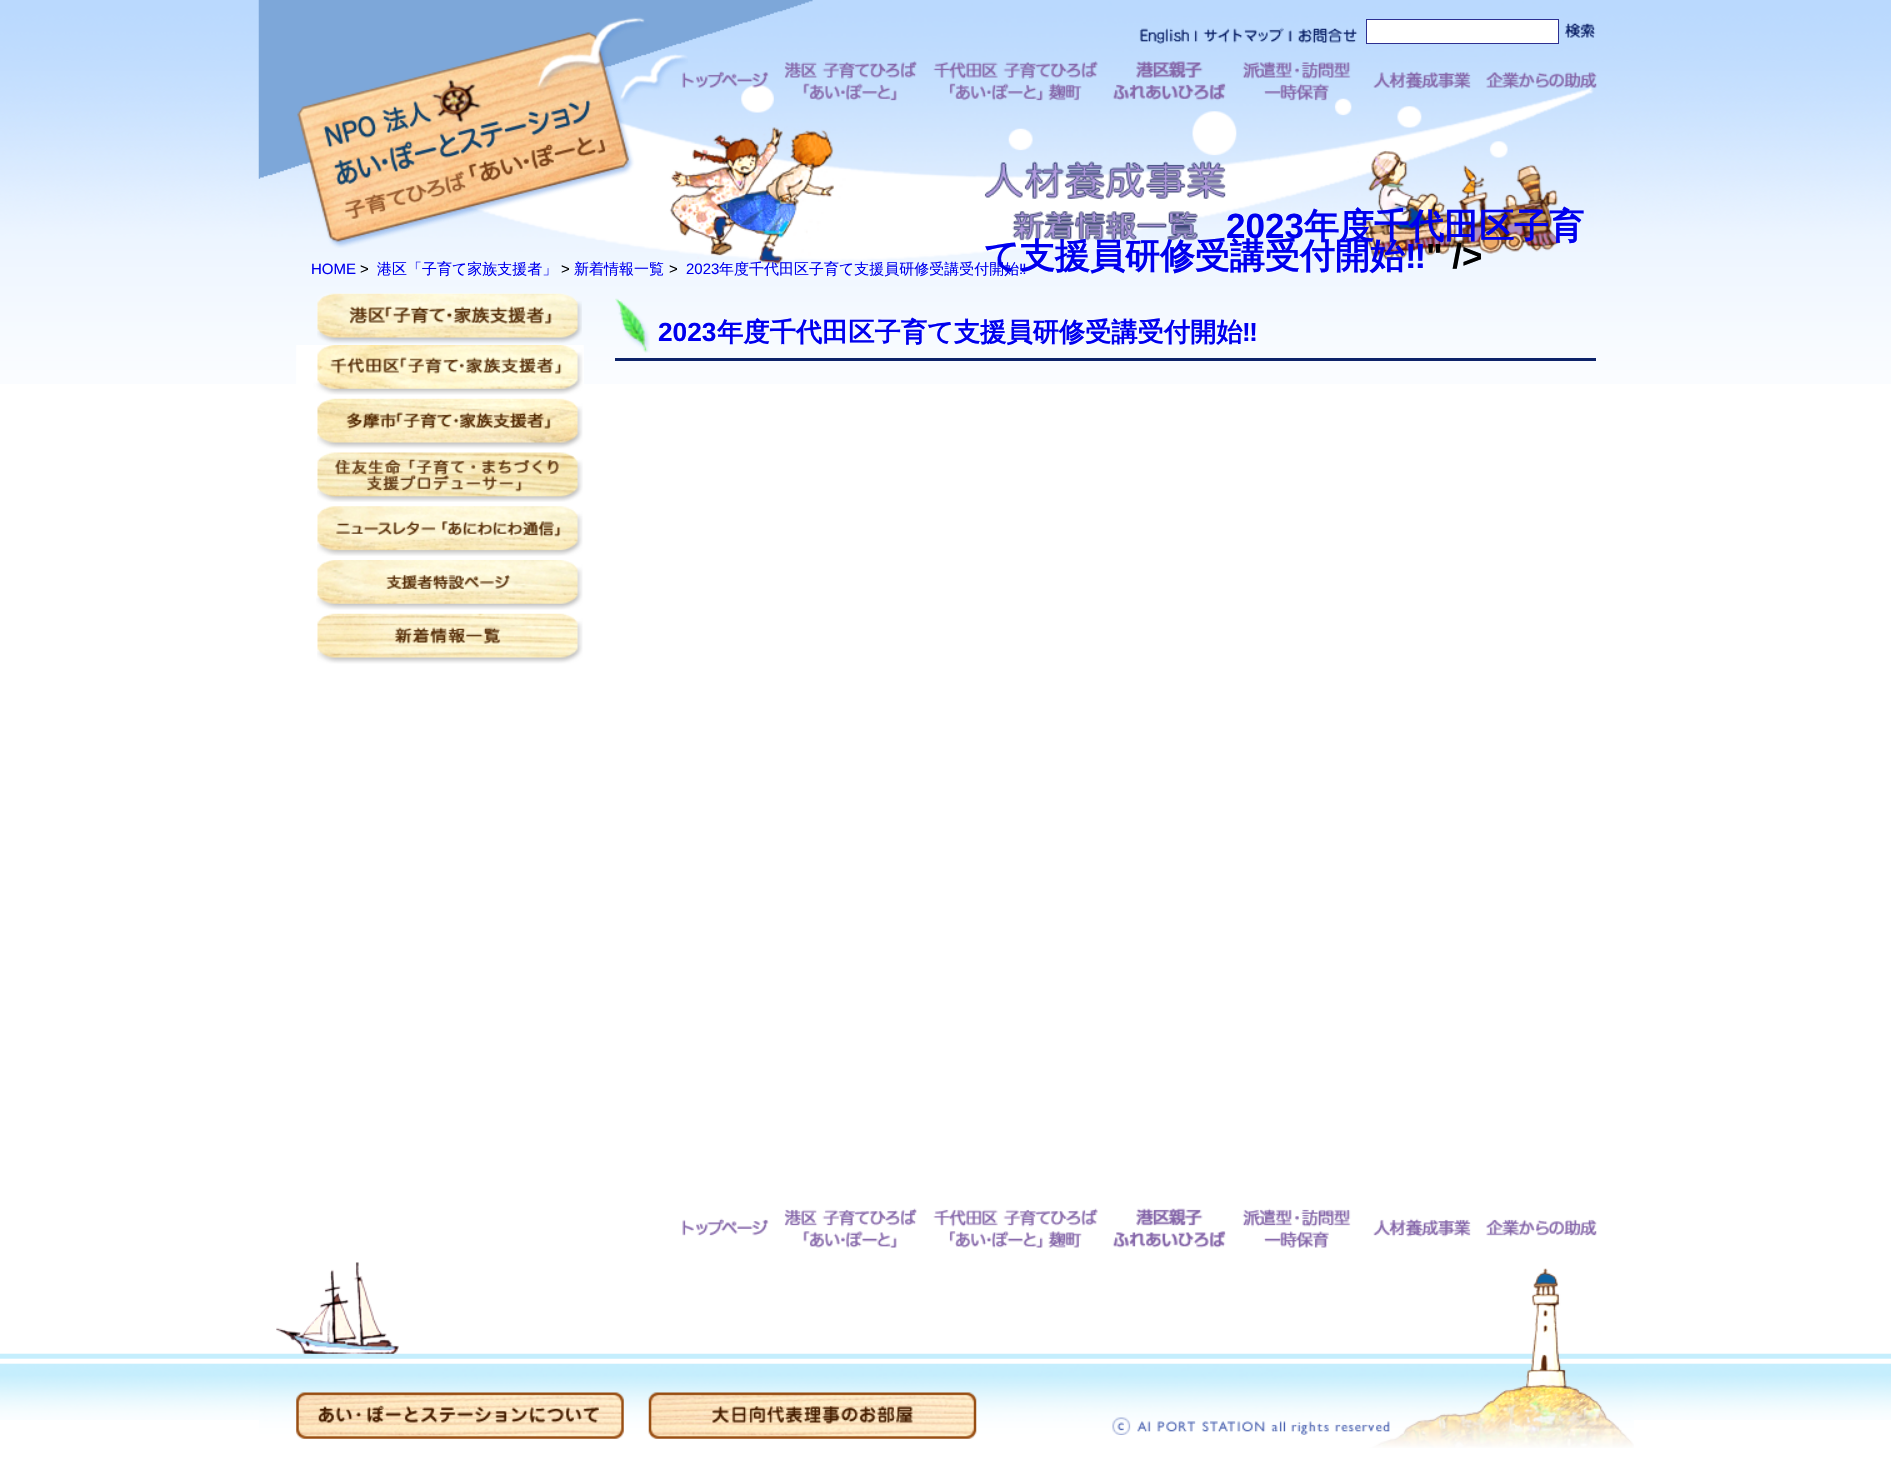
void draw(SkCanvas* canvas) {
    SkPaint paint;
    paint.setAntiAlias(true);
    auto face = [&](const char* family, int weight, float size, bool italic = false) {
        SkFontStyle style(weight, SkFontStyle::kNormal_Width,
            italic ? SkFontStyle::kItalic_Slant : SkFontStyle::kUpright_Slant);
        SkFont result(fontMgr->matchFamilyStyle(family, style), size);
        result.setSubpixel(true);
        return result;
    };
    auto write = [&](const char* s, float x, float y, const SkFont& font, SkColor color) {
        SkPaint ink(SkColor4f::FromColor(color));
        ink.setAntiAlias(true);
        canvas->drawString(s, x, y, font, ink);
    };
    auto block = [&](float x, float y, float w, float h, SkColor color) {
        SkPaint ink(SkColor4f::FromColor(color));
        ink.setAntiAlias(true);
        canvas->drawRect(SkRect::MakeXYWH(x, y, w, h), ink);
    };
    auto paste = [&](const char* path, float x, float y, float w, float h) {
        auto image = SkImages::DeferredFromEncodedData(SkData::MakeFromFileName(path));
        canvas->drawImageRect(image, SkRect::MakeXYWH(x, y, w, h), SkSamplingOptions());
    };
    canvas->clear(SK_ColorWHITE);
    paste("pic1.png", 0, 0, 1891, 384);
    paste("pic2.png", 258, 0, 1336, 264);
    paste("pic3.png", 297, 17, 391, 231);
    paste("pic4.png", 1139, 28, 59, 16);
    paste("pic5.png", 1203, 27, 89, 16);
    paste("pic6.png", 1298, 28, 60, 15);
    paint.setColor(SK_ColorWHITE);
    canvas->drawRect(SkRect::MakeXYWH(1366.5f, 19.5f, 192, 24), paint);
    paint.setStyle(SkPaint::kStroke_Style);
    paint.setStrokeWidth(1);
    paint.setColor(SkColorSetRGB(45, 47, 145));
    canvas->drawRect(SkRect::MakeXYWH(1366.5f, 19.5f, 192, 24), paint);
    paste("pic7.png", 1564, 23, 32, 15);
    paste("pic8.png", 682, 71, 87, 17);
    paste("pic9.png", 784, 61, 133, 40);
    paste("pic10.png", 933, 61, 165, 40);
    paste("pic11.png", 1112, 61, 114, 40);
    paste("pic12.png", 1242, 61, 109, 40);
    paste("pic13.png", 1373, 71, 98, 18);
    paste("pic14.png", 1486, 72, 111, 17);
    paste("pic15.png", 984, 161, 242, 80);
    auto kFont1 = face("Liberation Sans", 700, 35);
    write("2023", 1226, 238, kFont1, SkColorSetRGB(0, 0, 238));
    auto kFont2 = face("WenQuanYi Zen Hei", 700, 35);
    write("年度千代田区子育", 1304, 238, kFont2, SkColorSetRGB(0, 0, 238));
    auto kFont3 = face("WenQuanYi Zen Hei", 500, 15);
    write("年度千代田区子育て支援員研修受講受付開始", 719, 274, kFont3, SkColorSetRGB(0, 0, 238));
    auto kFont4 = face("Liberation Sans", 400, 15);
    write("‼", 1019, 274, kFont4, SkColorSetRGB(0, 0, 238));
    write("て支援員研修受講受付開始", 984, 268, kFont2, SkColorSetRGB(0, 0, 238));
    write("‼", 1405, 268, kFont1, SkColorSetRGB(0, 0, 238));
    write("\" />", 1426, 268, kFont1, SK_ColorBLACK);
    write("HOME", 311, 274, kFont4, SkColorSetRGB(0, 0, 238));
    write(">", 360, 274, kFont4, SK_ColorBLACK);
    write("港区「子育て家族支援者」", 377, 274, kFont3, SkColorSetRGB(0, 0, 238));
    write(">", 561, 274, kFont4, SK_ColorBLACK);
    write("新着情報一覧", 574, 274, kFont3, SkColorSetRGB(0, 0, 238));
    write(">", 669, 274, kFont4, SK_ColorBLACK);
    write("2023", 686, 274, kFont4, SkColorSetRGB(0, 0, 238));
    paste("pic16.png", 317, 293, 265, 51);
    paste("pic17.png", 296, 345, 288, 50);
    paste("pic18.png", 317, 398, 266, 51);
    paste("pic19.png", 317, 452, 266, 50);
    paste("pic20.png", 317, 506, 266, 50);
    paste("pic21.png", 316, 560, 267, 50);
    paste("pic22.png", 317, 613, 266, 51);
    paste("pic23.png", 615, 298, 35, 55);
    block(615, 358, 981, 3, SkColorSetRGB(13, 35, 105));
    auto kFont5 = face("Liberation Sans", 700, 26.25f);
    write("2023", 658, 341, kFont5, SkColorSetRGB(0, 0, 238));
    auto kFont6 = face("WenQuanYi Zen Hei", 700, 26.25f);
    write("年度千代田区子育て支援員研修受講受付開始", 717, 341, kFont6, SkColorSetRGB(0, 0, 238));
    write("‼", 1242, 341, kFont5, SkColorSetRGB(0, 0, 238));
    paste("pic24.png", 0, 1353, 1891, 67);
    paste("pic25.png", 259, 1262, 1375, 186);
    paste("pic26.png", 682, 1218, 87, 18);
    paste("pic27.png", 784, 1208, 133, 40);
    paste("pic28.png", 933, 1208, 165, 40);
    paste("pic29.png", 1112, 1208, 114, 40);
    paste("pic30.png", 1242, 1208, 109, 40);
    paste("pic31.png", 1373, 1218, 98, 19);
    paste("pic32.png", 1486, 1219, 111, 18);
    paste("pic33.png", 296, 1392, 328, 47);
    paste("pic34.png", 648, 1392, 329, 47);
    paste("pic35.png", 1112, 1417, 278, 18);
}
